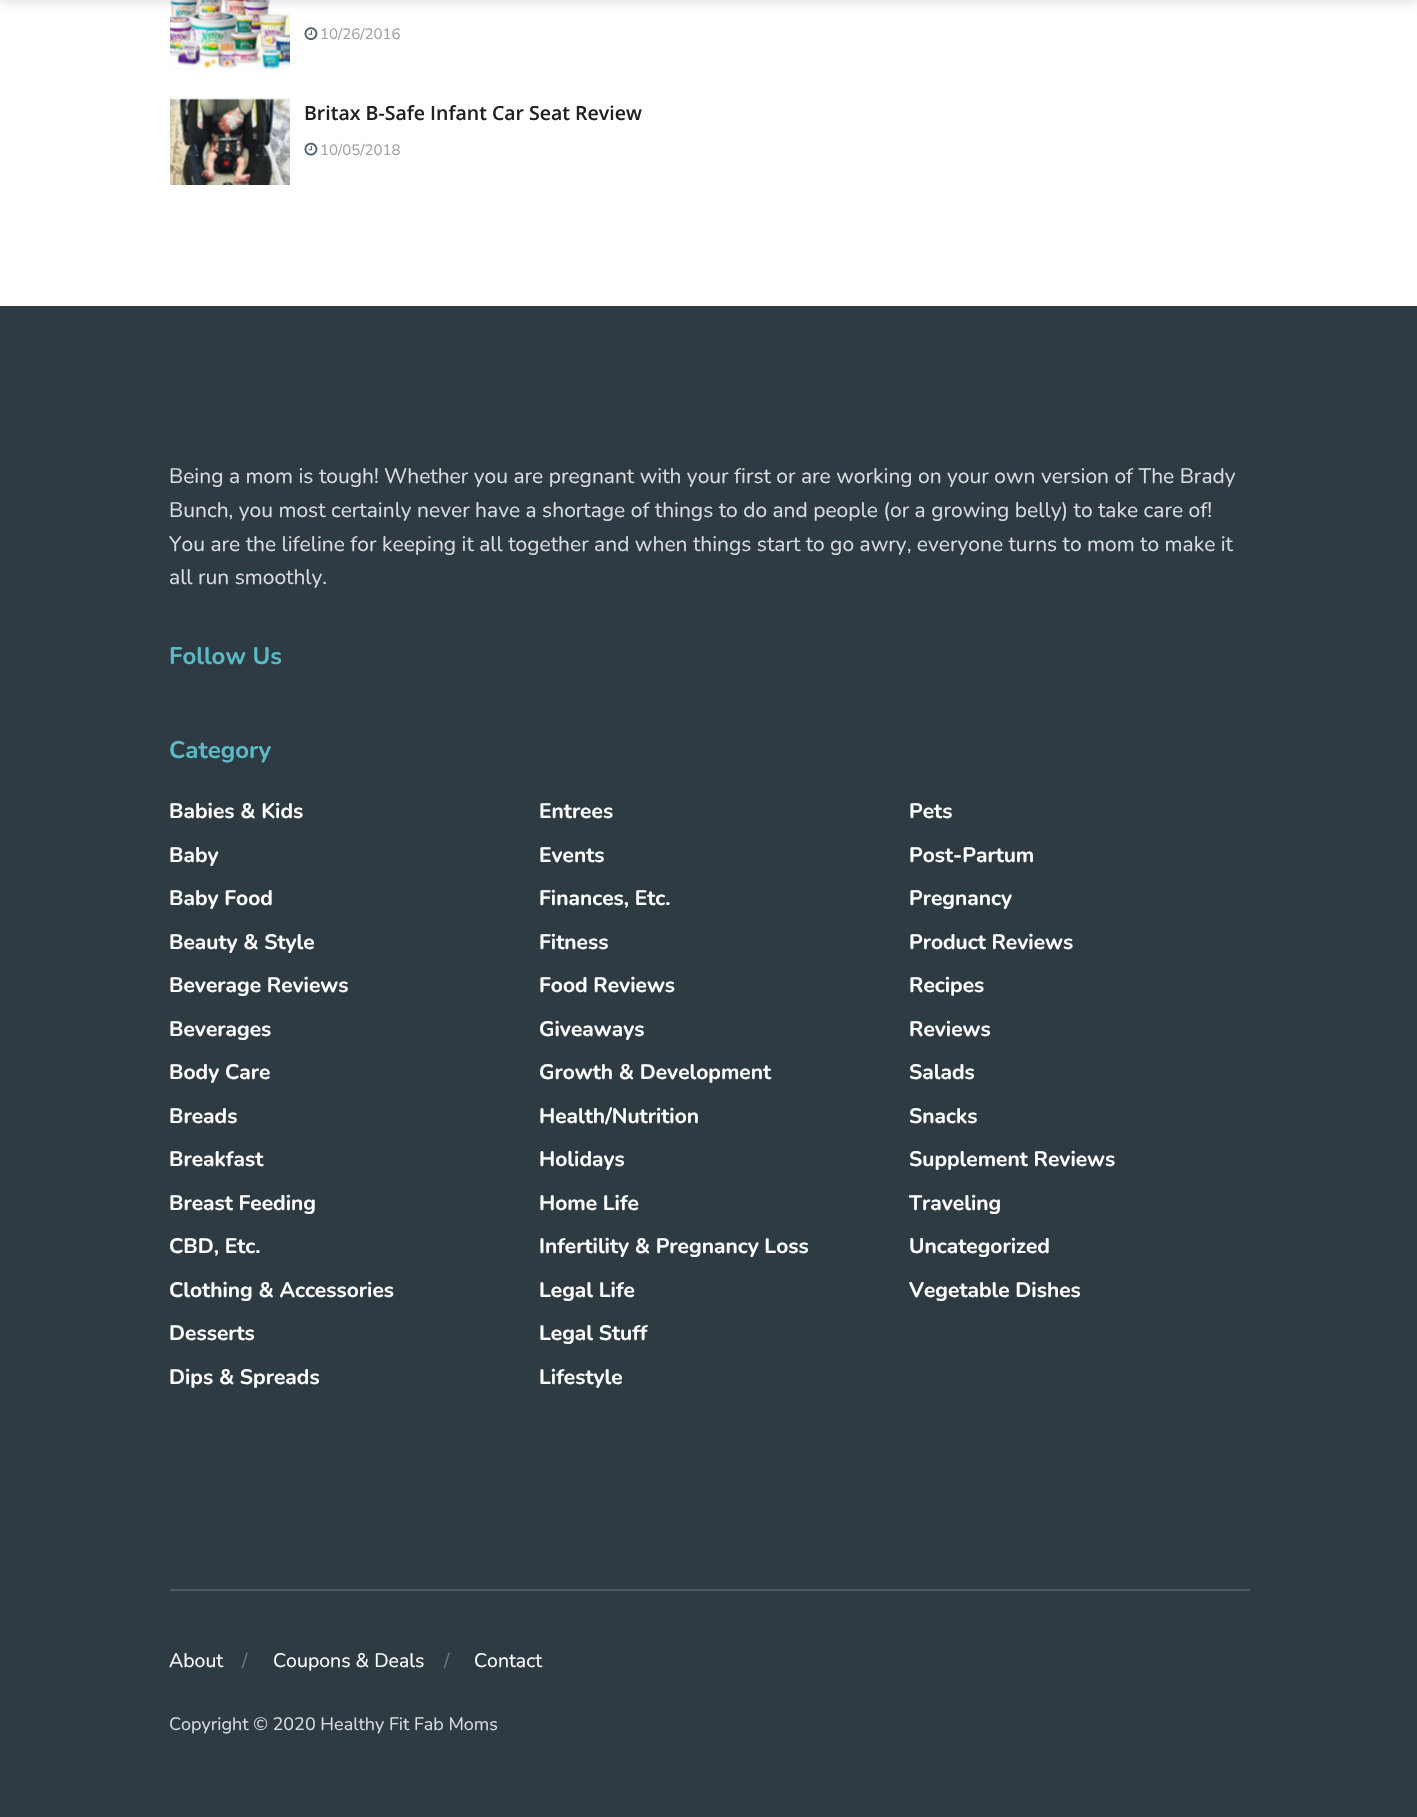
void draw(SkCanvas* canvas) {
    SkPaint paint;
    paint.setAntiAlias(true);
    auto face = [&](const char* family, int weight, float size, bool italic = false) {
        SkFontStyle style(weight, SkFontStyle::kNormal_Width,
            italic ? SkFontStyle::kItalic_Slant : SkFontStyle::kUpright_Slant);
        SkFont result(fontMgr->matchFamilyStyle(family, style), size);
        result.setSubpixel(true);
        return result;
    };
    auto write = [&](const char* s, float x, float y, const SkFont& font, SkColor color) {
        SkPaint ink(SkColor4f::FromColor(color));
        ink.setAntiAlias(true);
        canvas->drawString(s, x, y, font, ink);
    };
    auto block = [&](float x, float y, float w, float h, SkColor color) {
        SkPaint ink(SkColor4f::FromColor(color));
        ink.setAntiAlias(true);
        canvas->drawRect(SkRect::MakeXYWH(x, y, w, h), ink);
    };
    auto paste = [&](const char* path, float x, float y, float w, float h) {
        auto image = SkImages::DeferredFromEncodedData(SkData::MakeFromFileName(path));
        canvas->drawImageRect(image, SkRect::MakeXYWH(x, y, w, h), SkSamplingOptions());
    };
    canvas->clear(SK_ColorWHITE);
    block(170, 68, 120, 1, SkColorSetRGB(247, 247, 247));
    paste("pic2.png", 270, 68, 20, 1);
    paste("pic1.png", 170, 0, 120, 70);
    paint.setColor(SkColorSetARGB(26, 0, 0, 0));
    paint.setMaskFilter(SkMaskFilter::MakeBlur(kNormal_SkBlurStyle, 4.5f));
    canvas->drawRect(SkRect::MakeXYWH(0, -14, 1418, 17), paint);
    paint.setMaskFilter(nullptr);
    paste("pic3.png", 304, 27, 14, 14);
    auto kFont1 = face("Nunito", 400, 15);
    write("10/26/2016", 320, 39, kFont1, SkColorSetRGB(160, 160, 160));
    block(170, 99, 120, 1, SkColorSetRGB(247, 247, 247));
    paste("pic5.png", 270, 99, 20, 1);
    paste("pic4.png", 170, 98, 120, 87);
    auto kFont2 = face("Open Sans", 600, 19.5f);
    write("Britax B-Safe Infant Car Seat Review", 304, 120, kFont2, SkColorSetRGB(33, 33, 33));
    paste("pic6.png", 304, 142, 14, 14);
    write("10/05/2018", 320, 155, kFont1, SkColorSetRGB(160, 160, 160));
    block(0, 306, 1417, 1511, SkColorSetRGB(46, 59, 67));
    auto kFont3 = face("Nunito", 400, 21);
    write("Being a mom is tough! Whether you are pregnant with your first or are working on your own version of The Brady", 169, 483, kFont3, SkColorSetRGB(217, 219, 220));
    write("Bunch, you most certainly never have a shortage of things to do and people (or a growing belly) to take care of!", 169, 517, kFont3, SkColorSetRGB(217, 219, 220));
    write("You are the lifeline for keeping it all together and when things start to go awry, everyone turns to mom to make it", 169, 551, kFont3, SkColorSetRGB(217, 219, 220));
    write("all run smoothly.", 169, 584, kFont3, SkColorSetRGB(217, 219, 220));
    auto kFont4 = face("Nunito", 700, 24);
    write("Follow Us", 169, 664, kFont4, SkColorSetRGB(91, 186, 199));
    write("Category", 169, 758, kFont4, SkColorSetRGB(91, 186, 199));
    auto kFont5 = face("Nunito", 700, 21);
    write("Babies & Kids", 169, 818, kFont5, SK_ColorWHITE);
    write("Entrees", 539, 818, kFont5, SK_ColorWHITE);
    write("Pets", 909, 818, kFont5, SK_ColorWHITE);
    write("Baby", 169, 862, kFont5, SK_ColorWHITE);
    write("Events", 539, 862, kFont5, SK_ColorWHITE);
    write("Post-Partum", 909, 862, kFont5, SK_ColorWHITE);
    write("Baby Food", 169, 905, kFont5, SK_ColorWHITE);
    write("Finances, Etc.", 539, 905, kFont5, SK_ColorWHITE);
    write("Pregnancy", 909, 905, kFont5, SK_ColorWHITE);
    write("Beauty & Style", 169, 949, kFont5, SK_ColorWHITE);
    write("Fitness", 539, 949, kFont5, SK_ColorWHITE);
    write("Product Reviews", 909, 949, kFont5, SK_ColorWHITE);
    write("Beverage Reviews", 169, 992, kFont5, SK_ColorWHITE);
    write("Food Reviews", 539, 992, kFont5, SK_ColorWHITE);
    write("Recipes", 909, 992, kFont5, SK_ColorWHITE);
    write("Beverages", 169, 1036, kFont5, SK_ColorWHITE);
    write("Giveaways", 539, 1036, kFont5, SK_ColorWHITE);
    write("Reviews", 909, 1036, kFont5, SK_ColorWHITE);
    write("Body Care", 169, 1079, kFont5, SK_ColorWHITE);
    write("Growth & Development", 539, 1079, kFont5, SK_ColorWHITE);
    write("Salads", 909, 1079, kFont5, SK_ColorWHITE);
    write("Breads", 169, 1123, kFont5, SK_ColorWHITE);
    write("Health/Nutrition", 539, 1123, kFont5, SK_ColorWHITE);
    write("Snacks", 909, 1123, kFont5, SK_ColorWHITE);
    write("Breakfast", 169, 1166, kFont5, SK_ColorWHITE);
    write("Holidays", 539, 1166, kFont5, SK_ColorWHITE);
    write("Supplement Reviews", 909, 1166, kFont5, SK_ColorWHITE);
    write("Breast Feeding", 169, 1210, kFont5, SK_ColorWHITE);
    write("Home Life", 539, 1210, kFont5, SK_ColorWHITE);
    write("Traveling", 909, 1210, kFont5, SK_ColorWHITE);
    write("CBD, Etc.", 169, 1253, kFont5, SK_ColorWHITE);
    write("Infertility & Pregnancy Loss", 539, 1253, kFont5, SK_ColorWHITE);
    write("Uncategorized", 909, 1253, kFont5, SK_ColorWHITE);
    write("Clothing & Accessories", 169, 1297, kFont5, SK_ColorWHITE);
    write("Legal Life", 539, 1297, kFont5, SK_ColorWHITE);
    write("Vegetable Dishes", 909, 1297, kFont5, SK_ColorWHITE);
    write("Desserts", 169, 1340, kFont5, SK_ColorWHITE);
    write("Legal Stuff", 539, 1340, kFont5, SK_ColorWHITE);
    write("Dips & Spreads", 169, 1384, kFont5, SK_ColorWHITE);
    write("Lifestyle", 539, 1384, kFont5, SK_ColorWHITE);
    block(170, 1589, 1080, 2, SkColorSetRGB(77, 88, 95));
    auto kFont6 = face("Nunito", 400, 19.5f);
    write("About", 169, 1667, kFont6, SK_ColorWHITE);
    write("/", 242, 1667, kFont6, SkColorSetRGB(109, 118, 123));
    write("Coupons & Deals", 273, 1667, kFont6, SK_ColorWHITE);
    write("/", 444, 1667, kFont6, SkColorSetRGB(109, 118, 123));
    write("Contact", 474, 1667, kFont6, SK_ColorWHITE);
    auto kFont7 = face("Nunito", 400, 18);
    write("Copyright © 2020 Healthy Fit Fab Moms", 169, 1730, kFont7, SkColorSetRGB(217, 219, 220));
}
